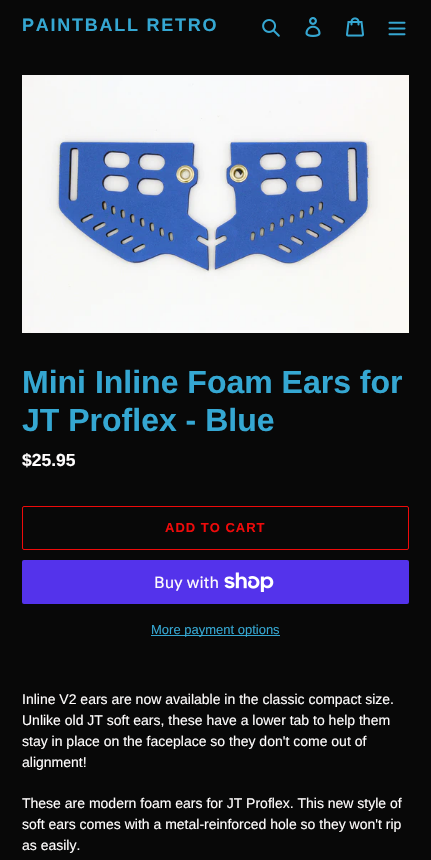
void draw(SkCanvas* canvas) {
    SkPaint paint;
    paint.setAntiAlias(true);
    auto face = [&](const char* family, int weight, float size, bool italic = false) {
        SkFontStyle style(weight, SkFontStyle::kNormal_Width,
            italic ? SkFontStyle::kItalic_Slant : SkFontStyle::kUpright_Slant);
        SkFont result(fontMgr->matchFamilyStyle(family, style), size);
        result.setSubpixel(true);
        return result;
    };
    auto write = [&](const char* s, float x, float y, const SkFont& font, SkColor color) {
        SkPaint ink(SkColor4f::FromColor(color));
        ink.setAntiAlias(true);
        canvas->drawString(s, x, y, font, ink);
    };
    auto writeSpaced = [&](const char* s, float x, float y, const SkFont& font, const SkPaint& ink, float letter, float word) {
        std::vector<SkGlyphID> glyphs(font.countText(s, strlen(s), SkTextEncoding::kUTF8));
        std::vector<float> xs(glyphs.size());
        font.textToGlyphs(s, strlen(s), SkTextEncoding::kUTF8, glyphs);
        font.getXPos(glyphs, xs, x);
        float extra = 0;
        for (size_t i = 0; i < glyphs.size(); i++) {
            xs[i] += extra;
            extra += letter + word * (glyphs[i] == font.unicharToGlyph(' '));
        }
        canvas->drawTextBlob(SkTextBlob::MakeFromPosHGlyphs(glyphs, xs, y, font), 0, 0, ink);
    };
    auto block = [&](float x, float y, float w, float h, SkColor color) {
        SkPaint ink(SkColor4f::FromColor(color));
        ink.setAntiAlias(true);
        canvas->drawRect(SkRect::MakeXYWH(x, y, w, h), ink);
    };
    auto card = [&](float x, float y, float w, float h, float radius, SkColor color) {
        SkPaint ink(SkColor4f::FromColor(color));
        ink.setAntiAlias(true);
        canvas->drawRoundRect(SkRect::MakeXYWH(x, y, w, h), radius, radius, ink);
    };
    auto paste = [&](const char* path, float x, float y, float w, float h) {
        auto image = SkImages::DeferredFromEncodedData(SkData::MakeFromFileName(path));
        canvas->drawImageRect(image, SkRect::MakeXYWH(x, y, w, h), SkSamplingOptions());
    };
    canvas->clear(SkColorSetRGB(8, 8, 8));
    auto kFont1 = face("Liberation Sans", 700, 18);
    paint.setColor(SkColorSetRGB(53, 167, 210));
    writeSpaced("PAINTBALL RETRO", 22, 31, kFont1, paint, 1.75f, 0);
    paste("pic1.png", 262, 19, 18, 18);
    paste("pic2.png", 305, 17, 16, 20);
    paste("pic3.png", 346, 17, 18, 20);
    paste("pic4.png", 388, 21, 18, 15);
    paste("pic5.png", 22, 75, 387, 258);
    auto kFont2 = face("Liberation Sans", 700, 32);
    write("Mini Inline Foam Ears for", 22, 393, kFont2, SkColorSetRGB(53, 167, 210));
    write("JT Proflex - Blue", 22, 431, kFont2, SkColorSetRGB(53, 167, 210));
    auto kFont3 = face("Liberation Sans", 700, 17.5f);
    write("$25.95", 22, 466, kFont3, SkColorSetRGB(255, 253, 253));
    paint.setStyle(SkPaint::kStroke_Style);
    paint.setStrokeWidth(1);
    paint.setColor(SkColorSetRGB(238, 10, 10));
    canvas->drawRoundRect(SkRect::MakeXYWH(22.5f, 506.5f, 386, 43), 1.5f, 1.5f, paint);
    auto kFont4 = face("Liberation Sans", 700, 13);
    paint.setStyle(SkPaint::kFill_Style);
    writeSpaced("ADD TO CART", 165, 532, kFont4, paint, 1, 0);
    card(22, 560, 387, 44, 2, SkColorSetRGB(84, 51, 235));
    auto kFont5 = face("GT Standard", 400, 16);
    write("Buy with", 154, 588, kFont5, SkColorSetRGB(255, 253, 253));
    paste("pic6.png", 224, 572, 50, 20);
    block(151, 635, 129, 1, SkColorSetRGB(53, 167, 210));
    auto kFont6 = face("Liberation Sans", 400, 13);
    write("More payment options", 151, 634, kFont6, SkColorSetRGB(53, 167, 210));
    auto kFont7 = face("Liberation Sans", 400, 14);
    write("Inline V2 ears are now available in the classic compact size.", 22, 704, kFont7, SkColorSetRGB(255, 253, 253));
    write("Unlike old JT soft ears, these have a lower tab to help them", 22, 725, kFont7, SkColorSetRGB(255, 253, 253));
    write("stay in place on the faceplace so they don't come out of", 22, 746, kFont7, SkColorSetRGB(255, 253, 253));
    write("alignment!", 22, 767, kFont7, SkColorSetRGB(255, 253, 253));
    write("These are modern foam ears for JT Proflex. This new style of", 22, 808, kFont7, SkColorSetRGB(255, 253, 253));
    write("soft ears comes with a metal-reinforced hole so they won't rip", 22, 829, kFont7, SkColorSetRGB(255, 253, 253));
    write("as easily.", 22, 850, kFont7, SkColorSetRGB(255, 253, 253));
}
